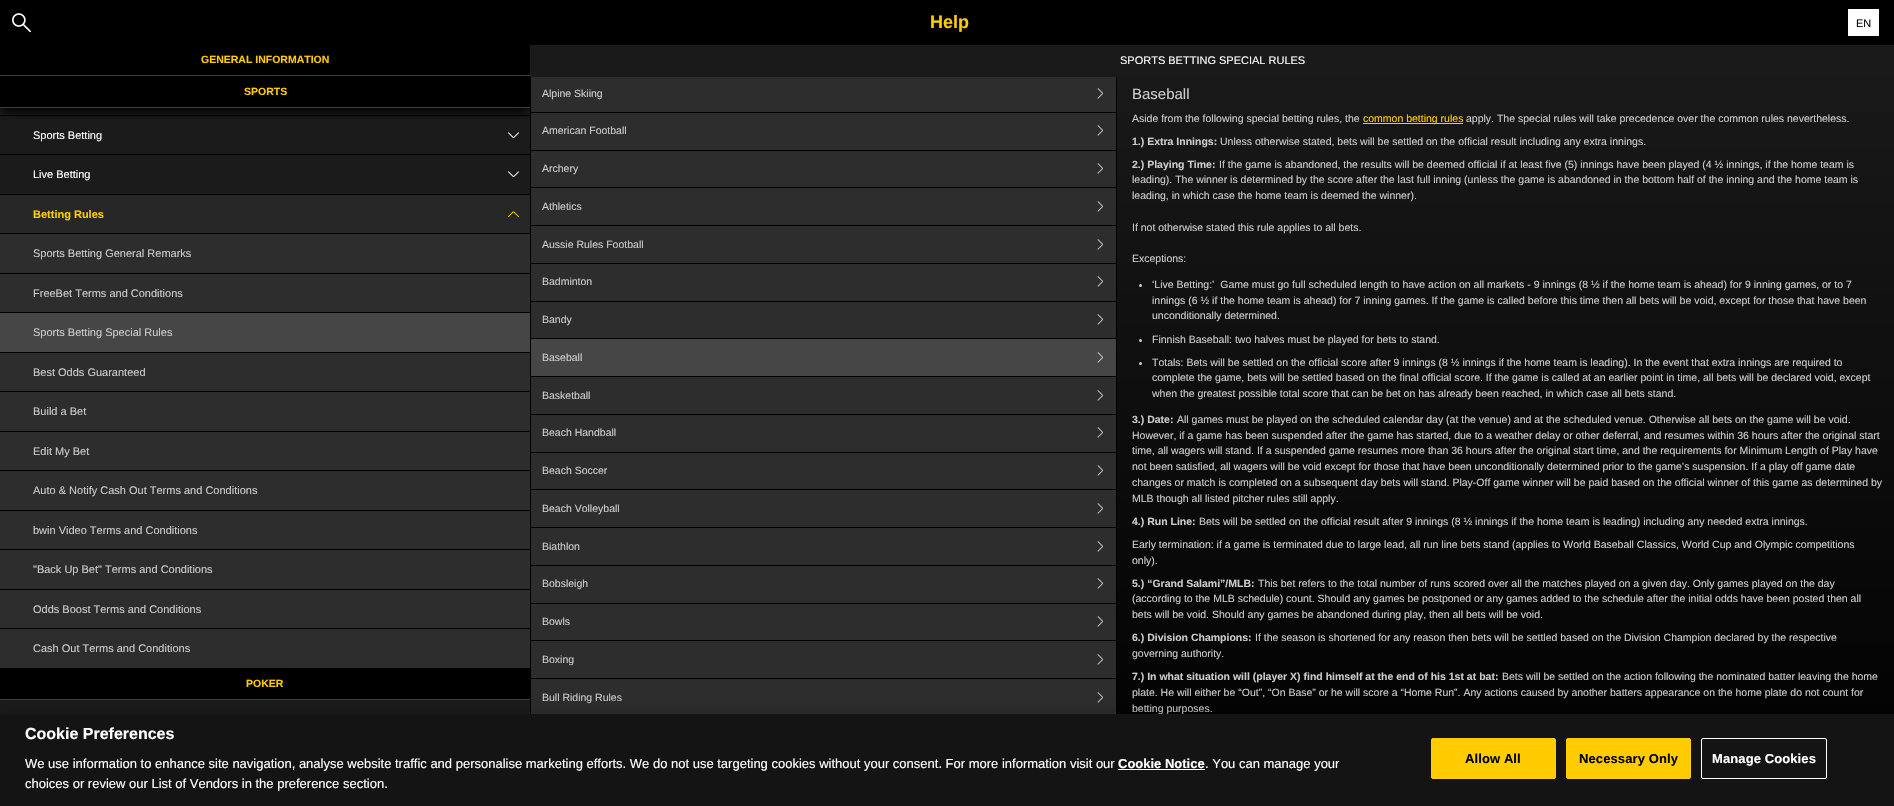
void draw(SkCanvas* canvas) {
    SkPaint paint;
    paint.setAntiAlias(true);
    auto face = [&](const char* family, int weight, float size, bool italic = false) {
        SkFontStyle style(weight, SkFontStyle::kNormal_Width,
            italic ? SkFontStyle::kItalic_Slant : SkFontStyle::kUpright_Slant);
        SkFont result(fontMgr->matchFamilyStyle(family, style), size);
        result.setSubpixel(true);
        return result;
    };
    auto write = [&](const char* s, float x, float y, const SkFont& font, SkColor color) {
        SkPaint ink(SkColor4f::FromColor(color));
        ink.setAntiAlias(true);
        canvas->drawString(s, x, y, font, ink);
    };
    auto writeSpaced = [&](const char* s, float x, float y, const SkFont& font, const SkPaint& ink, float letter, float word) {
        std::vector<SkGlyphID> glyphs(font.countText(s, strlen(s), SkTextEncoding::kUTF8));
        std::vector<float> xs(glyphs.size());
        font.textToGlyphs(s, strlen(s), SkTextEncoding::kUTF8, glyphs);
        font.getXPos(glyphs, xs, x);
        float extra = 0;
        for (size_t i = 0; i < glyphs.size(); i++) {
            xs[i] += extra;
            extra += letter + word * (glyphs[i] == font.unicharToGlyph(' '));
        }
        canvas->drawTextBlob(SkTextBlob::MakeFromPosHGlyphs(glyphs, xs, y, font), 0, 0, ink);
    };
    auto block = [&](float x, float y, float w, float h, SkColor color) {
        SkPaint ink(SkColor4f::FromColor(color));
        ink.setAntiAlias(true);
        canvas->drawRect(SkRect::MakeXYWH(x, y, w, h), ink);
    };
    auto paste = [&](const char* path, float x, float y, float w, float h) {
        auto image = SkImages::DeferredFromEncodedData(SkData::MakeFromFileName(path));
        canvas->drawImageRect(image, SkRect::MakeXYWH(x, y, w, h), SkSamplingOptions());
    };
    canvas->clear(SK_ColorWHITE);
    block(0, 108, 530, 606, SkColorSetRGB(27, 27, 27));
    block(0, 115, 530, 1, SK_ColorBLACK);
    block(530, 77, 1, 637, SK_ColorBLACK);
    block(531, 77, 585, 35, SkColorSetRGB(45, 45, 45));
    block(531, 112, 585, 1, SK_ColorBLACK);
    block(531, 113, 585, 37, SkColorSetRGB(45, 45, 45));
    canvas->save();
    canvas->clipRect(SkRect::MakeXYWH(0, 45, 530, 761));
    paint.setColor(SK_ColorBLACK);
    paint.setMaskFilter(SkMaskFilter::MakeBlur(kNormal_SkBlurStyle, 5));
    canvas->drawRect(SkRect::MakeXYWH(1, 51, 528, 61), paint);
    paint.setMaskFilter(nullptr);
    canvas->restore();
    block(0, 0, 1894, 45, SK_ColorBLACK);
    paste("pic1.png", 12, 13, 19, 20);
    auto kFont1 = face("Liberation Sans", 700, 18);
    write("Help", 930, 28, kFont1, SkColorSetRGB(255, 204, 0));
    block(1848, 9, 31, 27, SK_ColorWHITE);
    auto kFont2 = face("Liberation Sans", 400, 11);
    write("EN", 1856, 27, kFont2, SK_ColorBLACK);
    block(0, 45, 530, 30, SK_ColorBLACK);
    block(0, 75, 530, 1, SkColorSetRGB(61, 61, 61));
    auto kFont3 = face("Liberation Sans", 700, 10.5f);
    write("GENERAL INFORMATION", 201, 63, kFont3, SkColorSetRGB(255, 204, 0));
    block(0, 76, 530, 31, SK_ColorBLACK);
    block(0, 107, 530, 1, SkColorSetRGB(61, 61, 61));
    write("SPORTS", 244, 95, kFont3, SkColorSetRGB(255, 204, 0));
    block(0, 154, 530, 1, SK_ColorBLACK);
    write("Sports Betting", 33, 139, kFont2, SK_ColorWHITE);
    paste("pic2.png", 508, 132, 11, 6);
    block(0, 194, 530, 1, SK_ColorBLACK);
    write("Live Betting", 33, 178, kFont2, SK_ColorWHITE);
    paste("pic2.png", 508, 171, 11, 6);
    block(0, 195, 530, 38, SkColorSetRGB(39, 39, 39));
    auto kFont4 = face("Liberation Sans", 700, 11);
    write("Betting Rules", 33, 218, kFont4, SkColorSetRGB(255, 204, 0));
    paste("pic3.png", 508, 211, 11, 6);
    block(0, 233, 530, 1, SK_ColorBLACK);
    block(0, 273, 530, 1, SK_ColorBLACK);
    block(0, 234, 530, 39, SkColorSetRGB(45, 45, 45));
    write("Sports Betting General Remarks", 33, 257, kFont2, SkColorSetRGB(204, 204, 204));
    block(0, 312, 530, 1, SK_ColorBLACK);
    block(0, 274, 530, 38, SkColorSetRGB(45, 45, 45));
    write("FreeBet Terms and Conditions", 33, 297, kFont2, SkColorSetRGB(204, 204, 204));
    block(0, 352, 530, 1, SK_ColorBLACK);
    block(0, 313, 530, 39, SkColorSetRGB(70, 70, 70));
    write("Sports Betting Special Rules", 33, 336, kFont2, SkColorSetRGB(204, 204, 204));
    block(0, 391, 530, 1, SK_ColorBLACK);
    block(0, 353, 530, 38, SkColorSetRGB(45, 45, 45));
    write("Best Odds Guaranteed", 33, 376, kFont2, SkColorSetRGB(204, 204, 204));
    block(0, 431, 530, 1, SK_ColorBLACK);
    block(0, 392, 530, 39, SkColorSetRGB(45, 45, 45));
    write("Build a Bet", 33, 415, kFont2, SkColorSetRGB(204, 204, 204));
    block(0, 470, 530, 1, SK_ColorBLACK);
    block(0, 432, 530, 38, SkColorSetRGB(45, 45, 45));
    write("Edit My Bet", 33, 455, kFont2, SkColorSetRGB(204, 204, 204));
    block(0, 510, 530, 1, SK_ColorBLACK);
    block(0, 471, 530, 39, SkColorSetRGB(45, 45, 45));
    write("Auto & Notify Cash Out Terms and Conditions", 33, 494, kFont2, SkColorSetRGB(204, 204, 204));
    block(0, 549, 530, 1, SK_ColorBLACK);
    block(0, 511, 530, 38, SkColorSetRGB(45, 45, 45));
    write("bwin Video Terms and Conditions", 33, 534, kFont2, SkColorSetRGB(204, 204, 204));
    block(0, 589, 530, 1, SK_ColorBLACK);
    block(0, 550, 530, 39, SkColorSetRGB(45, 45, 45));
    write("\"Back Up Bet\" Terms and Conditions", 33, 573, kFont2, SkColorSetRGB(204, 204, 204));
    block(0, 628, 530, 1, SK_ColorBLACK);
    block(0, 590, 530, 38, SkColorSetRGB(45, 45, 45));
    write("Odds Boost Terms and Conditions", 33, 613, kFont2, SkColorSetRGB(204, 204, 204));
    block(0, 629, 530, 39, SkColorSetRGB(45, 45, 45));
    write("Cash Out Terms and Conditions", 33, 652, kFont2, SkColorSetRGB(204, 204, 204));
    block(0, 668, 530, 31, SK_ColorBLACK);
    block(0, 699, 530, 1, SkColorSetRGB(61, 61, 61));
    write("POKER", 246, 687, kFont3, SkColorSetRGB(255, 204, 0));
    block(1116, 75, 1, 639, SK_ColorBLACK);
    block(530, 45, 1364, 32, SkColorSetRGB(26, 26, 26));
    write("SPORTS BETTING SPECIAL RULES", 1120, 64, kFont2, SkColorSetRGB(251, 250, 248));
    {
        const SkColor colors[] = {SkColorSetRGB(26, 26, 26), SK_ColorBLACK};
        const float stops[] = {0, 1};
        const SkPoint ends[] = {{1213, 45}, {1213, 806}};
        paint.setShader(SkGradientShader::MakeLinear(ends, colors, stops, 2, SkTileMode::kClamp));
        paint.setAlpha(255);
    }
    canvas->drawRect(SkRect::MakeXYWH(1117, 77, 777, 637), paint);
    auto kFont5 = face("Liberation Sans", 400, 10.5f);
    write("Alpine Skiing", 542, 97, kFont5, SkColorSetRGB(204, 204, 204));
    paste("pic4.png", 1097, 88, 6, 11);
    block(531, 150, 585, 1, SK_ColorBLACK);
    write("American Football", 542, 134, kFont5, SkColorSetRGB(204, 204, 204));
    paste("pic4.png", 1097, 125, 6, 11);
    block(531, 151, 585, 36, SkColorSetRGB(45, 45, 45));
    block(531, 187, 585, 1, SK_ColorBLACK);
    write("Archery", 542, 172, kFont5, SkColorSetRGB(204, 204, 204));
    paste("pic4.png", 1097, 163, 6, 11);
    block(531, 188, 585, 37, SkColorSetRGB(45, 45, 45));
    block(531, 225, 585, 1, SK_ColorBLACK);
    write("Athletics", 542, 210, kFont5, SkColorSetRGB(204, 204, 204));
    paste("pic4.png", 1097, 201, 6, 11);
    block(531, 226, 585, 37, SkColorSetRGB(45, 45, 45));
    block(531, 263, 585, 1, SK_ColorBLACK);
    write("Aussie Rules Football", 542, 248, kFont5, SkColorSetRGB(204, 204, 204));
    paste("pic4.png", 1097, 239, 6, 11);
    block(531, 264, 585, 37, SkColorSetRGB(45, 45, 45));
    block(531, 301, 585, 1, SK_ColorBLACK);
    write("Badminton", 542, 285, kFont5, SkColorSetRGB(204, 204, 204));
    paste("pic4.png", 1097, 276, 6, 11);
    block(531, 302, 585, 36, SkColorSetRGB(45, 45, 45));
    block(531, 338, 585, 1, SK_ColorBLACK);
    write("Bandy", 542, 323, kFont5, SkColorSetRGB(204, 204, 204));
    paste("pic4.png", 1097, 314, 6, 11);
    block(531, 339, 585, 37, SkColorSetRGB(70, 70, 70));
    block(531, 376, 585, 1, SK_ColorBLACK);
    write("Baseball", 542, 361, kFont5, SkColorSetRGB(204, 204, 204));
    paste("pic5.png", 1097, 352, 6, 11);
    block(531, 377, 585, 37, SkColorSetRGB(45, 45, 45));
    block(531, 414, 585, 1, SK_ColorBLACK);
    write("Basketball", 542, 399, kFont5, SkColorSetRGB(204, 204, 204));
    paste("pic4.png", 1097, 390, 6, 11);
    block(531, 415, 585, 37, SkColorSetRGB(45, 45, 45));
    block(531, 452, 585, 1, SK_ColorBLACK);
    write("Beach Handball", 542, 436, kFont5, SkColorSetRGB(204, 204, 204));
    paste("pic4.png", 1097, 427, 6, 11);
    block(531, 453, 585, 36, SkColorSetRGB(45, 45, 45));
    block(531, 489, 585, 1, SK_ColorBLACK);
    write("Beach Soccer", 542, 474, kFont5, SkColorSetRGB(204, 204, 204));
    paste("pic4.png", 1097, 465, 6, 11);
    block(531, 490, 585, 37, SkColorSetRGB(45, 45, 45));
    block(531, 527, 585, 1, SK_ColorBLACK);
    write("Beach Volleyball", 542, 512, kFont5, SkColorSetRGB(204, 204, 204));
    paste("pic4.png", 1097, 503, 6, 11);
    block(531, 528, 585, 37, SkColorSetRGB(45, 45, 45));
    block(531, 565, 585, 1, SK_ColorBLACK);
    write("Biathlon", 542, 550, kFont5, SkColorSetRGB(204, 204, 204));
    paste("pic4.png", 1097, 541, 6, 11);
    block(531, 566, 585, 37, SkColorSetRGB(45, 45, 45));
    block(531, 603, 585, 1, SK_ColorBLACK);
    write("Bobsleigh", 542, 587, kFont5, SkColorSetRGB(204, 204, 204));
    paste("pic4.png", 1097, 578, 6, 11);
    block(531, 604, 585, 36, SkColorSetRGB(45, 45, 45));
    block(531, 640, 585, 1, SK_ColorBLACK);
    write("Bowls", 542, 625, kFont5, SkColorSetRGB(204, 204, 204));
    paste("pic4.png", 1097, 616, 6, 11);
    block(531, 641, 585, 37, SkColorSetRGB(45, 45, 45));
    block(531, 678, 585, 1, SK_ColorBLACK);
    write("Boxing", 542, 663, kFont5, SkColorSetRGB(204, 204, 204));
    paste("pic4.png", 1097, 654, 6, 11);
    block(531, 679, 585, 35, SkColorSetRGB(45, 45, 45));
    write("Bull Riding Rules", 542, 701, kFont5, SkColorSetRGB(204, 204, 204));
    paste("pic4.png", 1097, 692, 6, 11);
    auto kFont6 = face("Liberation Sans", 400, 15);
    write("Baseball", 1132, 99, kFont6, SkColorSetRGB(204, 204, 204));
    write("Aside from the following special betting rules, the", 1132, 122, kFont5, SkColorSetRGB(204, 204, 204));
    block(1363, 123, 100, 1, SkColorSetRGB(255, 204, 0));
    write("common betting rules", 1363, 122, kFont5, SkColorSetRGB(255, 204, 0));
    write("apply. The special rules will take precedence over the common rules nevertheless.", 1466, 122, kFont5, SkColorSetRGB(204, 204, 204));
    write("1.) Extra Innings:", 1132, 145, kFont3, SkColorSetRGB(204, 204, 204));
    write("Unless otherwise stated, bets will be settled on the official result including any extra innings.", 1220, 145, kFont5, SkColorSetRGB(204, 204, 204));
    write("2.) Playing Time:", 1132, 168, kFont3, SkColorSetRGB(204, 204, 204));
    write("If the game is abandoned, the results will be deemed official if at least five (5) innings have been played (4 ½ innings, if the home team is", 1219, 168, kFont5, SkColorSetRGB(204, 204, 204));
    write("leading). The winner is determined by the score after the last full inning (unless the game is abandoned in the bottom half of the inning and the home team is", 1132, 183, kFont5, SkColorSetRGB(204, 204, 204));
    write("leading, in which case the home team is deemed the winner).", 1132, 199, kFont5, SkColorSetRGB(204, 204, 204));
    write("If not otherwise stated this rule applies to all bets.", 1132, 231, kFont5, SkColorSetRGB(204, 204, 204));
    write("Exceptions:", 1132, 262, kFont5, SkColorSetRGB(204, 204, 204));
    paint.setShader(nullptr);
    paint.setColor(SkColorSetRGB(204, 204, 204));
    canvas->drawCircle(1140.5f, 285.5f, 1.5f, paint);
    write("‘Live Betting:’  Game must go full scheduled length to have action on all markets - 9 innings (8 ½ if the home team is ahead) for 9 inning games, or to 7", 1152, 288, kFont5, SkColorSetRGB(204, 204, 204));
    write("innings (6 ½ if the home team is ahead) for 7 inning games. If the game is called before this time then all bets will be void, except for those that have been", 1152, 304, kFont5, SkColorSetRGB(204, 204, 204));
    write("unconditionally determined.", 1152, 319, kFont5, SkColorSetRGB(204, 204, 204));
    canvas->drawCircle(1140.5f, 340.5f, 1.5f, paint);
    write("Finnish Baseball: two halves must be played for bets to stand.", 1152, 343, kFont5, SkColorSetRGB(204, 204, 204));
    canvas->drawCircle(1140.5f, 363.5f, 1.5f, paint);
    write("Totals: Bets will be settled on the official score after 9 innings (8 ½ innings if the home team is leading). In the event that extra innings are required to", 1152, 366, kFont5, SkColorSetRGB(204, 204, 204));
    write("complete the game, bets will be settled based on the final official score. If the game is called at an earlier point in time, all bets will be declared void, except", 1152, 381, kFont5, SkColorSetRGB(204, 204, 204));
    write("when the greatest possible total score that can be bet on has already been reached, in which case all bets stand.", 1152, 397, kFont5, SkColorSetRGB(204, 204, 204));
    write("3.) Date:", 1132, 423, kFont3, SkColorSetRGB(204, 204, 204));
    write("All games must be played on the scheduled calendar day (at the venue) and at the scheduled venue. Otherwise all bets on the game will be void.", 1177, 423, kFont5, SkColorSetRGB(204, 204, 204));
    write("However, if a game has been suspended after the game has started, due to a weather delay or other deferral, and resumes within 36 hours after the original start", 1132, 439, kFont5, SkColorSetRGB(204, 204, 204));
    write("time, all wagers will stand. If a suspended game resumes more than 36 hours after the original start time, and the requirements for Minimum Length of Play have", 1132, 454, kFont5, SkColorSetRGB(204, 204, 204));
    write("not been satisfied, all wagers will be void except for those that have been unconditionally determined prior to the game’s suspension. If a play off game date", 1132, 470, kFont5, SkColorSetRGB(204, 204, 204));
    write("changes or match is completed on a subsequent day bets will stand. Play-Off game winner will be paid based on the official winner of this game as determined by", 1132, 486, kFont5, SkColorSetRGB(204, 204, 204));
    write("MLB though all listed pitcher rules still apply.", 1132, 502, kFont5, SkColorSetRGB(204, 204, 204));
    write("4.) Run Line:", 1132, 525, kFont3, SkColorSetRGB(204, 204, 204));
    write("Bets will be settled on the official result after 9 innings (8 ½ innings if the home team is leading) including any needed extra innings.", 1199, 525, kFont5, SkColorSetRGB(204, 204, 204));
    write("Early termination: if a game is terminated due to large lead, all run line bets stand (applies to World Baseball Classics, World Cup and Olympic competitions", 1132, 548, kFont5, SkColorSetRGB(204, 204, 204));
    write("only).", 1132, 564, kFont5, SkColorSetRGB(204, 204, 204));
    write("5.) “Grand Salami”/MLB:", 1132, 587, kFont3, SkColorSetRGB(204, 204, 204));
    write("This bet refers to the total number of runs scored over all the matches played on a given day. Only games played on the day", 1258, 587, kFont5, SkColorSetRGB(204, 204, 204));
    write("(according to the MLB schedule) count. Should any games be postponed or any games added to the schedule after the initial odds have been posted then all", 1132, 602, kFont5, SkColorSetRGB(204, 204, 204));
    write("bets will be void. Should any games be abandoned during play, then all bets will be void.", 1132, 618, kFont5, SkColorSetRGB(204, 204, 204));
    write("6.) Division Champions:", 1132, 641, kFont3, SkColorSetRGB(204, 204, 204));
    write("If the season is shortened for any reason then bets will be settled based on the Division Champion declared by the respective", 1255, 641, kFont5, SkColorSetRGB(204, 204, 204));
    write("governing authority.", 1132, 657, kFont5, SkColorSetRGB(204, 204, 204));
    write("7.) In what situation will (player X) find himself at the end of his 1st at bat:", 1132, 680, kFont3, SkColorSetRGB(204, 204, 204));
    write("Bets will be settled on the action following the nominated batter leaving the home", 1502, 680, kFont5, SkColorSetRGB(204, 204, 204));
    write("plate. He will either be “Out”, “On Base” or he will score a “Home Run”. Any actions caused by another batters appearance on the home plate do not count for", 1132, 696, kFont5, SkColorSetRGB(204, 204, 204));
    write("betting purposes.", 1132, 712, kFont5, SkColorSetRGB(204, 204, 204));
    paint.setColor(SkColorSetARGB(51, 0, 0, 0));
    paint.setMaskFilter(SkMaskFilter::MakeBlur(kNormal_SkBlurStyle, 9));
    canvas->drawRect(SkRect::MakeXYWH(0, 714, 1894, 92), paint);
    paint.setMaskFilter(nullptr);
    block(0, 714, 1894, 92, SkColorSetRGB(20, 20, 20));
    auto kFont7 = face("Liberation Sans", 700, 16);
    write("Cookie Preferences", 25, 739, kFont7, SK_ColorWHITE);
    auto kFont8 = face("Liberation Sans", 400, 13);
    write("We use information to enhance site navigation, analyse website traffic and personalise marketing efforts. We do not use targeting cookies without your consent. For more information visit our", 25, 768, kFont8, SK_ColorWHITE);
    auto kFont9 = face("Liberation Sans", 700, 13);
    write("Cookie Notice", 1118, 768, kFont9, SK_ColorWHITE);
    block(1118, 769, 87, 1, SK_ColorWHITE);
    write(". You can manage your", 1205, 768, kFont8, SK_ColorWHITE);
    write("choices or review our List of Vendors in the preference section.", 25, 788, kFont8, SK_ColorWHITE);
    paint.setColor(SkColorSetRGB(255, 204, 0));
    canvas->drawRoundRect(SkRect::MakeXYWH(1431.5f, 738.5f, 124, 40), 1.5f, 1.5f, paint);
    paint.setStyle(SkPaint::kStroke_Style);
    paint.setStrokeWidth(1);
    canvas->drawRoundRect(SkRect::MakeXYWH(1431.5f, 738.5f, 124, 40), 1.5f, 1.5f, paint);
    paint.setStyle(SkPaint::kFill_Style);
    paint.setColor(SK_ColorBLACK);
    writeSpaced("Allow All", 1465, 763, kFont9, paint, 0.1f, 0);
    paint.setColor(SkColorSetRGB(255, 204, 0));
    canvas->drawRoundRect(SkRect::MakeXYWH(1566.5f, 738.5f, 124, 40), 1.5f, 1.5f, paint);
    paint.setStyle(SkPaint::kStroke_Style);
    canvas->drawRoundRect(SkRect::MakeXYWH(1566.5f, 738.5f, 124, 40), 1.5f, 1.5f, paint);
    paint.setStyle(SkPaint::kFill_Style);
    paint.setColor(SK_ColorBLACK);
    writeSpaced("Necessary Only", 1579, 763, kFont9, paint, 0.1f, 0);
    paint.setStyle(SkPaint::kStroke_Style);
    paint.setColor(SK_ColorWHITE);
    canvas->drawRoundRect(SkRect::MakeXYWH(1701.5f, 738.5f, 125, 40), 1.5f, 1.5f, paint);
    paint.setStyle(SkPaint::kFill_Style);
    writeSpaced("Manage Cookies", 1712, 763, kFont9, paint, 0.1f, 0);
}
